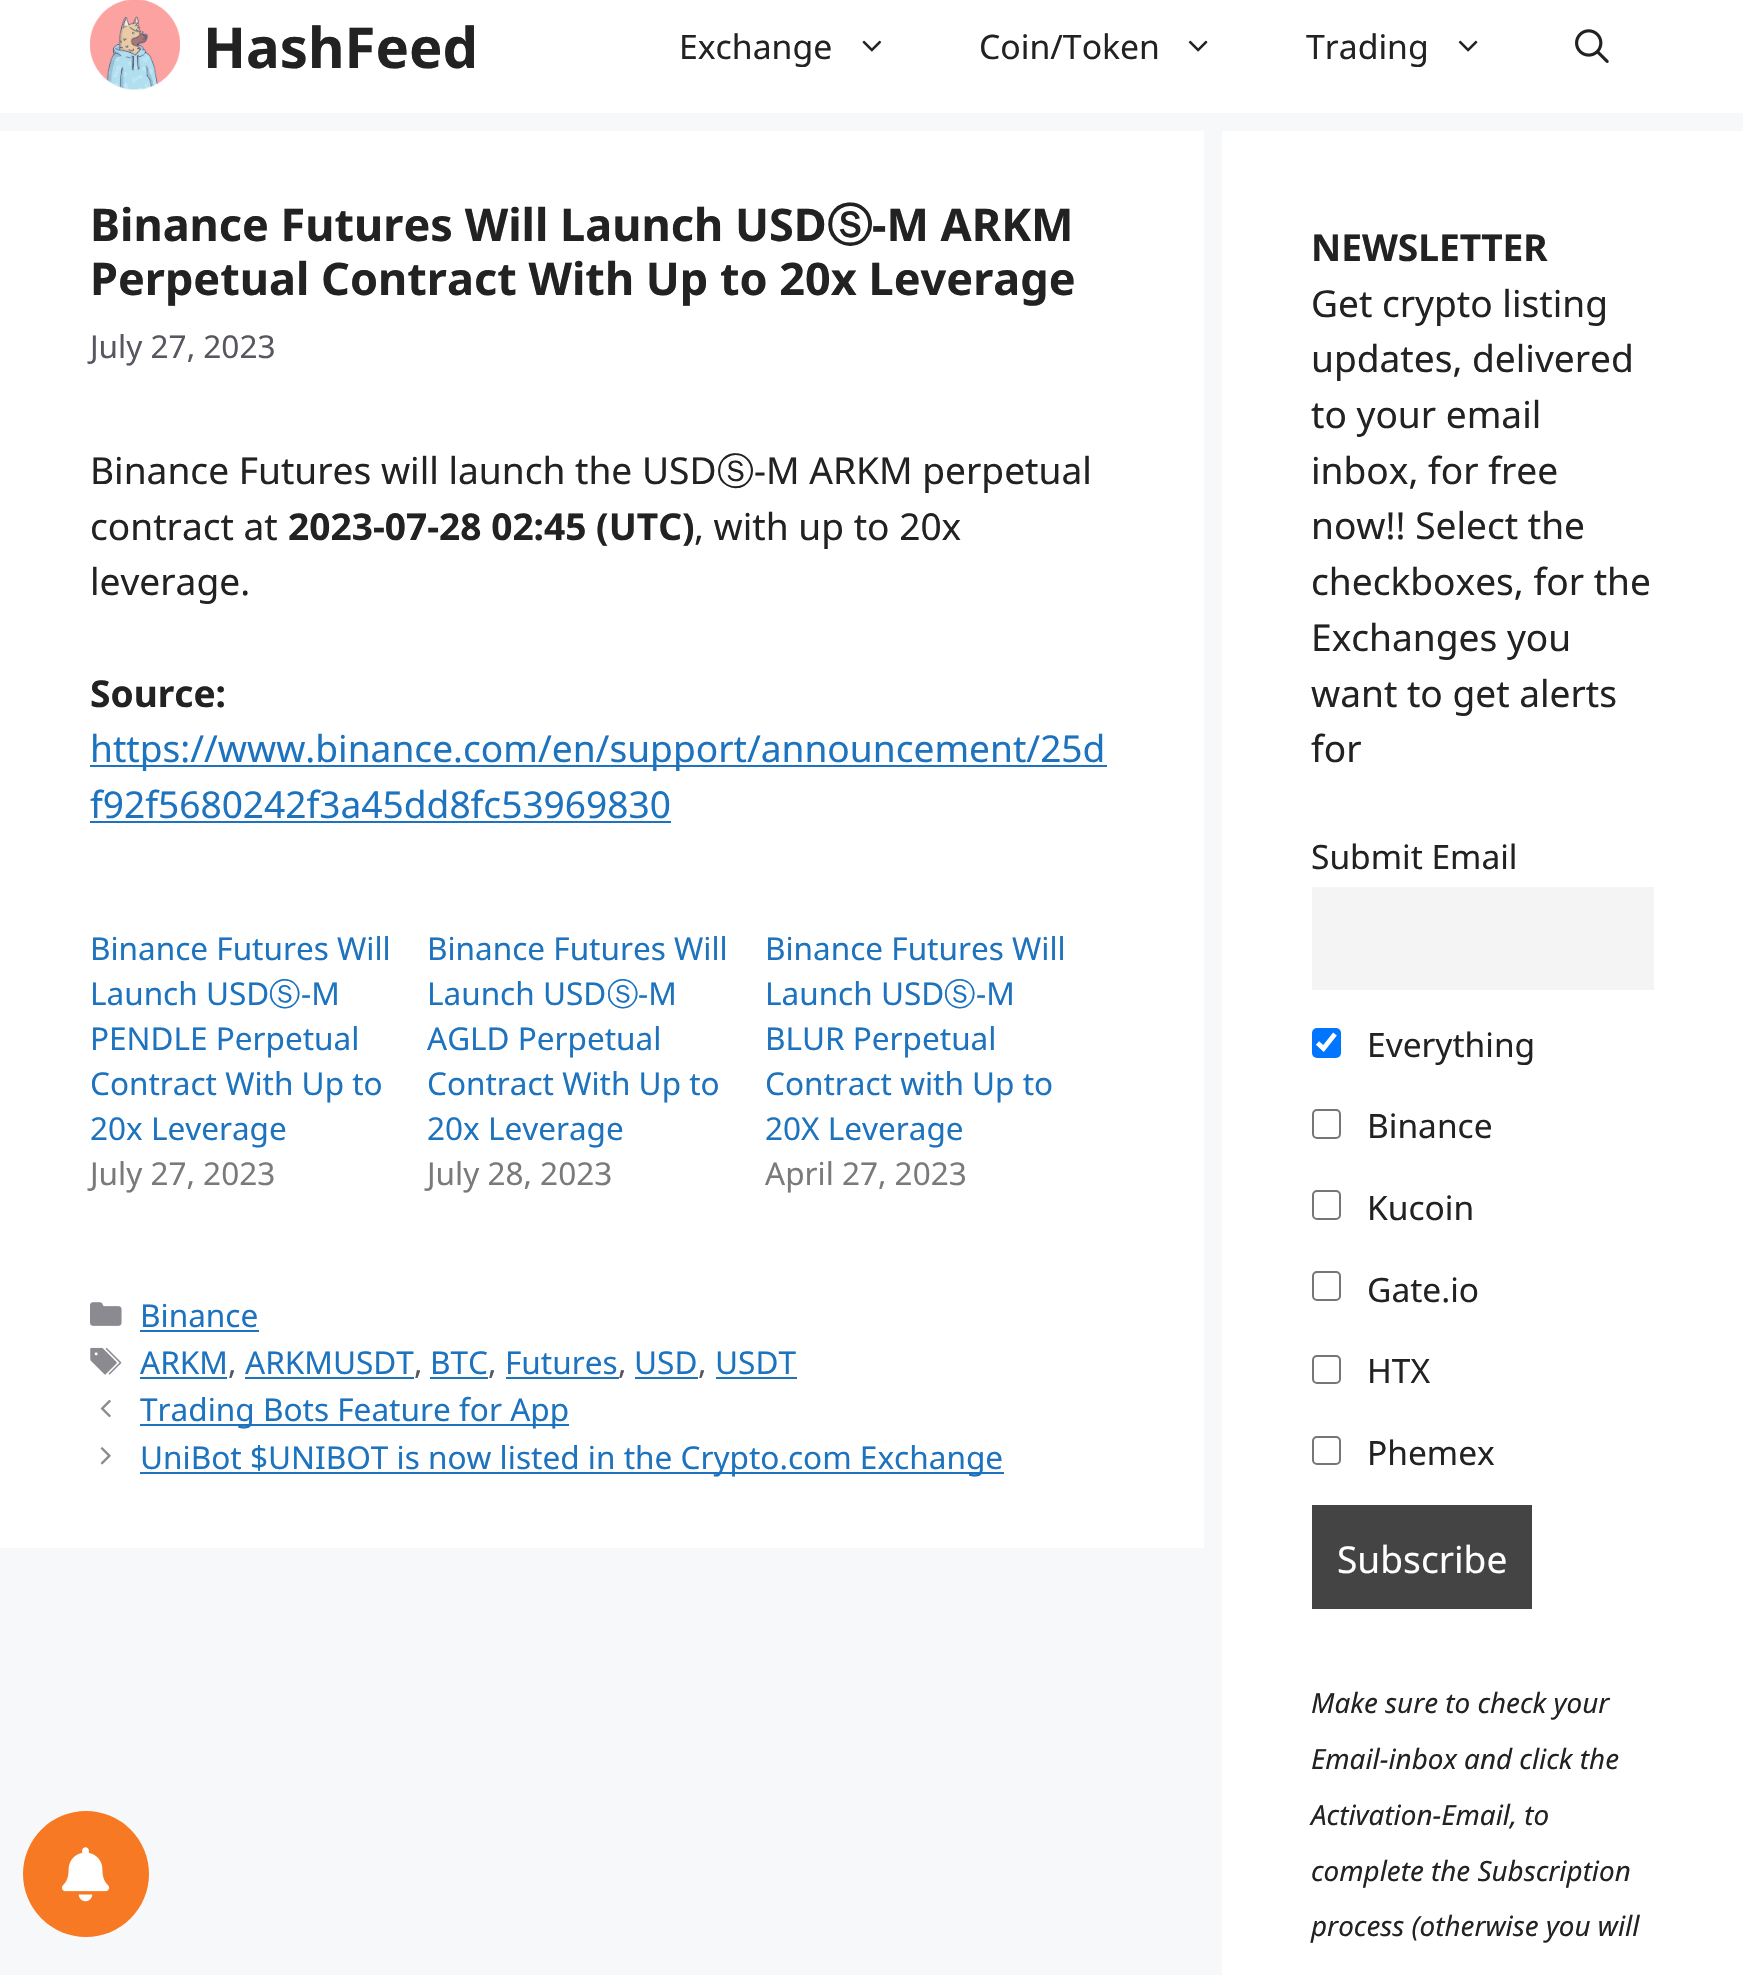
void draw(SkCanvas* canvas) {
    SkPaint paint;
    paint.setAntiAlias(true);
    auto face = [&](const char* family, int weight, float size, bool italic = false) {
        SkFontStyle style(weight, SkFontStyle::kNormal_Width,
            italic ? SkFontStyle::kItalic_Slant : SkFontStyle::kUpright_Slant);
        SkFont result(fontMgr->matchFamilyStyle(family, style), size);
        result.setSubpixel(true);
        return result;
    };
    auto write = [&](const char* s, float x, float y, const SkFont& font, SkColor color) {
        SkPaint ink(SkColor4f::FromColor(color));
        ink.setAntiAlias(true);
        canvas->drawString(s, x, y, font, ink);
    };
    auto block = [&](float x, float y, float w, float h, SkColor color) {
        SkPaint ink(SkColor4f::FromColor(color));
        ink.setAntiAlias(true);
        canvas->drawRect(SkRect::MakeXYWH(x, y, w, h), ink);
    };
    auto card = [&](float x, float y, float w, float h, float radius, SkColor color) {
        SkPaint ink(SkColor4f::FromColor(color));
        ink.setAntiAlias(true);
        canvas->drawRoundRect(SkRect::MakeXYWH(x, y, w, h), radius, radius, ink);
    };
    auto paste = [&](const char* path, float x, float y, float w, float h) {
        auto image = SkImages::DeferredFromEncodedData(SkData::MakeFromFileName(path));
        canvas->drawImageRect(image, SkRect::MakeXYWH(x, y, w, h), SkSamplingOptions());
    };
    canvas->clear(SkColorSetRGB(247, 248, 249));
    block(0, 0, 1743, 113, SK_ColorWHITE);
    paste("pic1.png", 90, 0, 90, 90);
    auto kFont1 = face("Noto Sans", 700, 56.25f);
    write("HashFeed", 203, 68, kFont1, SkColorSetRGB(34, 34, 34));
    auto kFont2 = face("Noto Sans", 400, 33.75f);
    write("Exchange", 679, 59, kFont2, SkColorSetRGB(34, 34, 34));
    paste("pic2.png", 862, 40, 20, 12);
    write("Coin/Token", 979, 59, kFont2, SkColorSetRGB(34, 34, 34));
    paste("pic3.png", 1188, 40, 20, 12);
    write("Trading", 1306, 59, kFont2, SkColorSetRGB(34, 34, 34));
    paste("pic3.png", 1458, 40, 20, 12);
    paste("pic4.png", 1575, 29, 34, 34);
    paint.setColor(SkColorSetRGB(247, 121, 36));
    canvas->drawCircle(86, 1874, 63, paint);
    paste("pic5.png", 61, 1847, 49, 55);
    block(0, 131, 1204, 1417, SK_ColorWHITE);
    auto kFont3 = face("Noto Sans", 700, 45);
    write("Binance Futures Will Launch USD", 90, 241, kFont3, SkColorSetRGB(34, 34, 34));
    auto kFont4 = face("WenQuanYi Zen Hei", 700, 45);
    write("Ⓢ", 827, 241, kFont4, SkColorSetRGB(34, 34, 34));
    write("-M ARKM", 872, 241, kFont3, SkColorSetRGB(34, 34, 34));
    write("Perpetual Contract With Up to 20x Leverage", 90, 295, kFont3, SkColorSetRGB(34, 34, 34));
    auto kFont5 = face("Noto Sans", 400, 31.55f);
    write("July 27, 2023", 90, 358, kFont5, SkColorSetRGB(87, 87, 96));
    auto kFont6 = face("Noto Sans", 400, 37.1f);
    write("Binance Futures will launch the USD", 90, 484, kFont6, SkColorSetRGB(34, 34, 34));
    auto kFont7 = face("WenQuanYi Zen Hei", 500, 37.1f);
    write("Ⓢ", 717, 484, kFont7, SkColorSetRGB(34, 34, 34));
    write("-M ARKM perpetual", 754, 484, kFont6, SkColorSetRGB(34, 34, 34));
    write("contract at", 90, 540, kFont6, SkColorSetRGB(34, 34, 34));
    auto kFont8 = face("Noto Sans", 700, 37.1f);
    write("2023-07-28 02:45 (UTC)", 288, 540, kFont8, SkColorSetRGB(34, 34, 34));
    write(", with up to 20x", 694, 540, kFont6, SkColorSetRGB(34, 34, 34));
    write("leverage.", 90, 595, kFont6, SkColorSetRGB(34, 34, 34));
    write("Source:", 90, 707, kFont8, SkColorSetRGB(34, 34, 34));
    block(90, 765, 1017, 2, SkColorSetRGB(30, 115, 190));
    write("https://www.binance.com/en/support/announcement/25d", 90, 762, kFont6, SkColorSetRGB(30, 115, 190));
    write("f92f5680242f3a45dd8fc53969830", 90, 818, kFont6, SkColorSetRGB(30, 115, 190));
    block(90, 821, 581, 2, SkColorSetRGB(30, 115, 190));
    auto kFont9 = face("Noto Sans", 400, 31.5f);
    write("Binance Futures Will", 90, 960, kFont9, SkColorSetRGB(30, 115, 190));
    write("Launch USD", 90, 1005, kFont9, SkColorSetRGB(30, 115, 190));
    auto kFont10 = face("WenQuanYi Zen Hei", 500, 31.5f);
    write("Ⓢ", 269, 1005, kFont10, SkColorSetRGB(30, 115, 190));
    write("-M", 301, 1005, kFont9, SkColorSetRGB(30, 115, 190));
    write("PENDLE Perpetual", 90, 1050, kFont9, SkColorSetRGB(30, 115, 190));
    write("Contract With Up to", 90, 1095, kFont9, SkColorSetRGB(30, 115, 190));
    write("20x Leverage", 90, 1140, kFont9, SkColorSetRGB(30, 115, 190));
    write("July 27, 2023", 90, 1185, kFont9, SkColorSetRGB(122, 122, 122));
    write("Binance Futures Will", 427, 960, kFont9, SkColorSetRGB(30, 115, 190));
    write("Launch USD", 427, 1005, kFont9, SkColorSetRGB(30, 115, 190));
    write("Ⓢ", 607, 1005, kFont10, SkColorSetRGB(30, 115, 190));
    write("-M", 638, 1005, kFont9, SkColorSetRGB(30, 115, 190));
    write("AGLD Perpetual", 427, 1050, kFont9, SkColorSetRGB(30, 115, 190));
    write("Contract With Up to", 427, 1095, kFont9, SkColorSetRGB(30, 115, 190));
    write("20x Leverage", 427, 1140, kFont9, SkColorSetRGB(30, 115, 190));
    write("July 28, 2023", 427, 1185, kFont9, SkColorSetRGB(122, 122, 122));
    write("Binance Futures Will", 765, 960, kFont9, SkColorSetRGB(30, 115, 190));
    write("Launch USD", 765, 1005, kFont9, SkColorSetRGB(30, 115, 190));
    write("Ⓢ", 944, 1005, kFont10, SkColorSetRGB(30, 115, 190));
    write("-M", 976, 1005, kFont9, SkColorSetRGB(30, 115, 190));
    write("BLUR Perpetual", 765, 1050, kFont9, SkColorSetRGB(30, 115, 190));
    write("Contract with Up to", 765, 1095, kFont9, SkColorSetRGB(30, 115, 190));
    write("20X Leverage", 765, 1140, kFont9, SkColorSetRGB(30, 115, 190));
    write("April 27, 2023", 765, 1185, kFont9, SkColorSetRGB(122, 122, 122));
    paste("pic6.png", 90, 1302, 32, 24);
    write("Binance", 140, 1327, kFont5, SkColorSetRGB(30, 115, 190));
    block(140, 1330, 119, 2, SkColorSetRGB(30, 115, 190));
    paste("pic7.png", 90, 1347, 32, 28);
    write("ARKM", 140, 1374, kFont5, SkColorSetRGB(30, 115, 190));
    block(140, 1377, 87, 2, SkColorSetRGB(30, 115, 190));
    write(",", 228, 1374, kFont5, SkColorSetRGB(87, 87, 96));
    write("ARKMUSDT", 245, 1374, kFont5, SkColorSetRGB(30, 115, 190));
    block(245, 1377, 169, 2, SkColorSetRGB(30, 115, 190));
    write(",", 414, 1374, kFont5, SkColorSetRGB(87, 87, 96));
    write("BTC", 430, 1374, kFont5, SkColorSetRGB(30, 115, 190));
    block(430, 1377, 58, 2, SkColorSetRGB(30, 115, 190));
    write(",", 488, 1374, kFont5, SkColorSetRGB(87, 87, 96));
    write("Futures", 505, 1374, kFont5, SkColorSetRGB(30, 115, 190));
    block(506, 1377, 113, 2, SkColorSetRGB(30, 115, 190));
    write(",", 618, 1374, kFont5, SkColorSetRGB(87, 87, 96));
    write("USD", 634, 1374, kFont5, SkColorSetRGB(30, 115, 190));
    block(635, 1377, 63, 2, SkColorSetRGB(30, 115, 190));
    write(",", 698, 1374, kFont5, SkColorSetRGB(87, 87, 96));
    write("USDT", 715, 1374, kFont5, SkColorSetRGB(30, 115, 190));
    block(716, 1377, 81, 2, SkColorSetRGB(30, 115, 190));
    paste("pic8.png", 100, 1399, 11, 19);
    block(140, 1424, 429, 2, SkColorSetRGB(30, 115, 190));
    write("Trading Bots Feature for App", 140, 1421, kFont5, SkColorSetRGB(30, 115, 190));
    paste("pic9.png", 100, 1447, 11, 18);
    block(140, 1472, 864, 2, SkColorSetRGB(30, 115, 190));
    write("UniBot $UNIBOT is now listed in the Crypto.com Exchange", 140, 1469, kFont5, SkColorSetRGB(30, 115, 190));
    block(1222, 131, 521, 1844, SK_ColorWHITE);
    write("NEWSLETTER", 1311, 261, kFont8, SkColorSetRGB(34, 34, 34));
    write("Get crypto listing", 1311, 317, kFont6, SkColorSetRGB(34, 34, 34));
    write("updates, delivered", 1311, 372, kFont6, SkColorSetRGB(34, 34, 34));
    write("to your email", 1311, 428, kFont6, SkColorSetRGB(34, 34, 34));
    write("inbox, for free", 1311, 484, kFont6, SkColorSetRGB(34, 34, 34));
    write("now!! Select the", 1311, 539, kFont6, SkColorSetRGB(34, 34, 34));
    write("checkboxes, for the", 1311, 595, kFont6, SkColorSetRGB(34, 34, 34));
    write("Exchanges you", 1311, 651, kFont6, SkColorSetRGB(34, 34, 34));
    write("want to get alerts", 1311, 707, kFont6, SkColorSetRGB(34, 34, 34));
    write("for", 1311, 762, kFont6, SkColorSetRGB(34, 34, 34));
    auto kFont11 = face("Noto Sans", 400, 33.5f);
    write("Submit Email", 1311, 869, kFont11, SkColorSetRGB(34, 34, 34));
    block(1312, 887, 342, 103, SkColorSetRGB(244, 244, 244));
    card(1312, 1028, 29, 30, 5, SkColorSetRGB(0, 117, 255));
    paint.setStyle(SkPaint::kStroke_Style);
    paint.setStrokeWidth(4.7f);
    paint.setColor(SK_ColorWHITE);
    canvas->drawPath(SkPathBuilder().moveTo(1317.5f, 1043).lineTo(1323.5f, 1048.5f).lineTo(1335, 1034).detach(), paint);
    write("Everything", 1367, 1057, kFont11, SkColorSetRGB(34, 34, 34));
    paint.setStrokeWidth(2);
    paint.setColor(SkColorSetRGB(118, 118, 118));
    canvas->drawRoundRect(SkRect::MakeXYWH(1313, 1110, 27, 28), 4, 4, paint);
    write("Binance", 1367, 1138, kFont11, SkColorSetRGB(34, 34, 34));
    canvas->drawRoundRect(SkRect::MakeXYWH(1313, 1191, 27, 28), 4, 4, paint);
    write("Kucoin", 1367, 1220, kFont11, SkColorSetRGB(34, 34, 34));
    canvas->drawRoundRect(SkRect::MakeXYWH(1313, 1272, 27, 28), 4, 4, paint);
    write("Gate.io", 1367, 1302, kFont11, SkColorSetRGB(34, 34, 34));
    canvas->drawRoundRect(SkRect::MakeXYWH(1313, 1356, 27, 27), 4, 4, paint);
    write("HTX", 1367, 1383, kFont11, SkColorSetRGB(34, 34, 34));
    canvas->drawRoundRect(SkRect::MakeXYWH(1313, 1437, 27, 27), 4, 4, paint);
    write("Phemex", 1367, 1465, kFont11, SkColorSetRGB(34, 34, 34));
    block(1312, 1505, 220, 104, SkColorSetRGB(68, 68, 68));
    write("Subscribe", 1337, 1573, kFont6, SK_ColorWHITE);
    auto kFont12 = face("Noto Sans", 400, 27.8f, true);
    write("Make sure to check your", 1311, 1713, kFont12, SkColorSetRGB(34, 34, 34));
    write("Email-inbox and click the", 1311, 1769, kFont12, SkColorSetRGB(34, 34, 34));
    write("Activation-Email, to", 1311, 1825, kFont12, SkColorSetRGB(34, 34, 34));
    write("complete the Subscription", 1311, 1881, kFont12, SkColorSetRGB(34, 34, 34));
    write("process (otherwise you will", 1311, 1936, kFont12, SkColorSetRGB(34, 34, 34));
}
